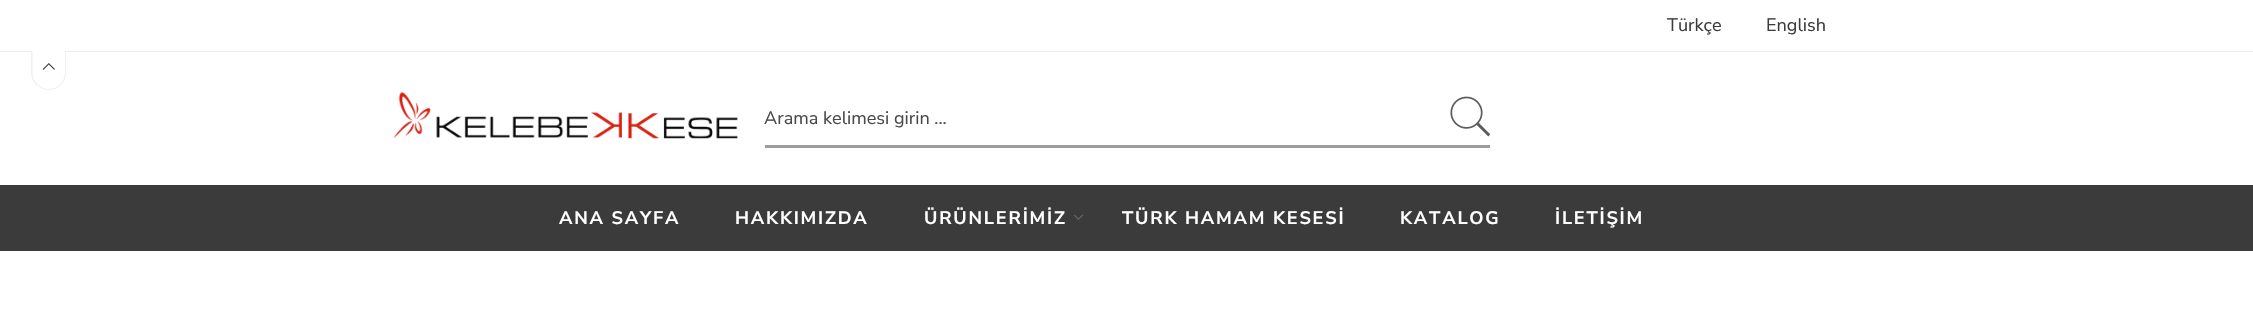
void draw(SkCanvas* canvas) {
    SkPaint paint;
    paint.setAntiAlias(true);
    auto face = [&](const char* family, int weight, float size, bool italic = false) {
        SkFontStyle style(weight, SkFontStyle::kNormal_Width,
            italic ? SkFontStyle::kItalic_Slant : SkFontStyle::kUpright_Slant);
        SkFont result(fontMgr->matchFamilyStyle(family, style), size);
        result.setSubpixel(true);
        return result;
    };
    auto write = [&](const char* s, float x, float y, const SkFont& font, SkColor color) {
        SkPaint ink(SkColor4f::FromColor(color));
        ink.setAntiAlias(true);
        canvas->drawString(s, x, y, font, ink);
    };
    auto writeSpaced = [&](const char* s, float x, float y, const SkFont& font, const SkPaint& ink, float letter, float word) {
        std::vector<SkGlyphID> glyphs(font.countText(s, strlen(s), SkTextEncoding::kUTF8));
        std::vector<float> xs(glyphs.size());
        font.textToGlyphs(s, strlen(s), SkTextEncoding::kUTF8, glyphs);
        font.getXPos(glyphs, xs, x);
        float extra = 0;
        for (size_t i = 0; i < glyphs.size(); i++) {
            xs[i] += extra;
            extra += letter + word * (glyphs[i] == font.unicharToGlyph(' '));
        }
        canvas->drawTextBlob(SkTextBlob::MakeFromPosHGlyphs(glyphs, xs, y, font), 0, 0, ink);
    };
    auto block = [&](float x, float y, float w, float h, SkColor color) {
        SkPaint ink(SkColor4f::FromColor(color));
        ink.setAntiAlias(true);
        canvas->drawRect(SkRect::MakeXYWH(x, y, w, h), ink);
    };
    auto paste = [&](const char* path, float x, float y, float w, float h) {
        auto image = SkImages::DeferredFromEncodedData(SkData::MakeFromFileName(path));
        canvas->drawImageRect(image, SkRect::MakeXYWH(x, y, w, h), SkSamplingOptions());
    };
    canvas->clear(SK_ColorWHITE);
    block(0, 51, 2253, 1, SkColorSetRGB(237, 237, 237));
    auto kFont1 = face("Nunito Sans", 400, 18.1f);
    write("Türkçe", 1667, 31, kFont1, SkColorSetRGB(59, 59, 59));
    write("English", 1766, 31, kFont1, SkColorSetRGB(59, 59, 59));
    paint.setColor(SK_ColorWHITE);
    canvas->drawPath(SkPathBuilder().moveTo(31, 51).lineTo(66, 51).lineTo(66, 72.5f).cubicTo(66, 82, 58, 90, 48.5f, 90).cubicTo(39, 90, 31, 82, 31, 72.5f).close().detach(), paint);
    paint.setColor(SkColorSetRGB(240, 240, 240));
    canvas->drawPath(SkPathBuilder(SkPathFillType::kEvenOdd).moveTo(31, 51).lineTo(66, 51).lineTo(66, 72.5f).cubicTo(66, 82, 58.5f, 90, 49, 90).cubicTo(39, 90, 31, 82, 31, 72.5f).close().moveTo(32.5f, 51).lineTo(65, 51).lineTo(65, 72.5f).cubicTo(65, 81.5f, 57.5f, 89, 49, 89).cubicTo(40, 89, 32.5f, 81.5f, 32.5f, 72.5f).close().detach(), paint);
    paste("pic1.png", 42, 63, 13, 7);
    paste("pic2.png", 393, 92, 345, 47);
    block(765, 145, 725, 3, SkColorSetRGB(157, 157, 157));
    write("Arama kelimesi girin ...", 764, 124, kFont1, SkColorSetRGB(72, 72, 72));
    paste("pic3.png", 1450, 96, 40, 41);
    block(0, 185, 2253, 66, SkColorSetRGB(59, 59, 59));
    auto kFont2 = face("Nunito Sans", 700, 18.1f);
    paint.setColor(SK_ColorWHITE);
    writeSpaced("ANA SAYFA", 559, 224, kFont2, paint, 1.8f, 0);
    writeSpaced("HAKKIMIZDA", 735, 224, kFont2, paint, 1.8f, 0);
    writeSpaced("ÜRÜNLERİMİZ", 924, 224, kFont2, paint, 1.8f, 0);
    paste("pic4.png", 1074, 214, 9, 6);
    writeSpaced("TÜRK HAMAM KESESİ", 1122, 224, kFont2, paint, 1.8f, 0);
    writeSpaced("KATALOG", 1400, 224, kFont2, paint, 1.8f, 0);
    writeSpaced("İLETİŞİM", 1555, 224, kFont2, paint, 1.8f, 0);
}
